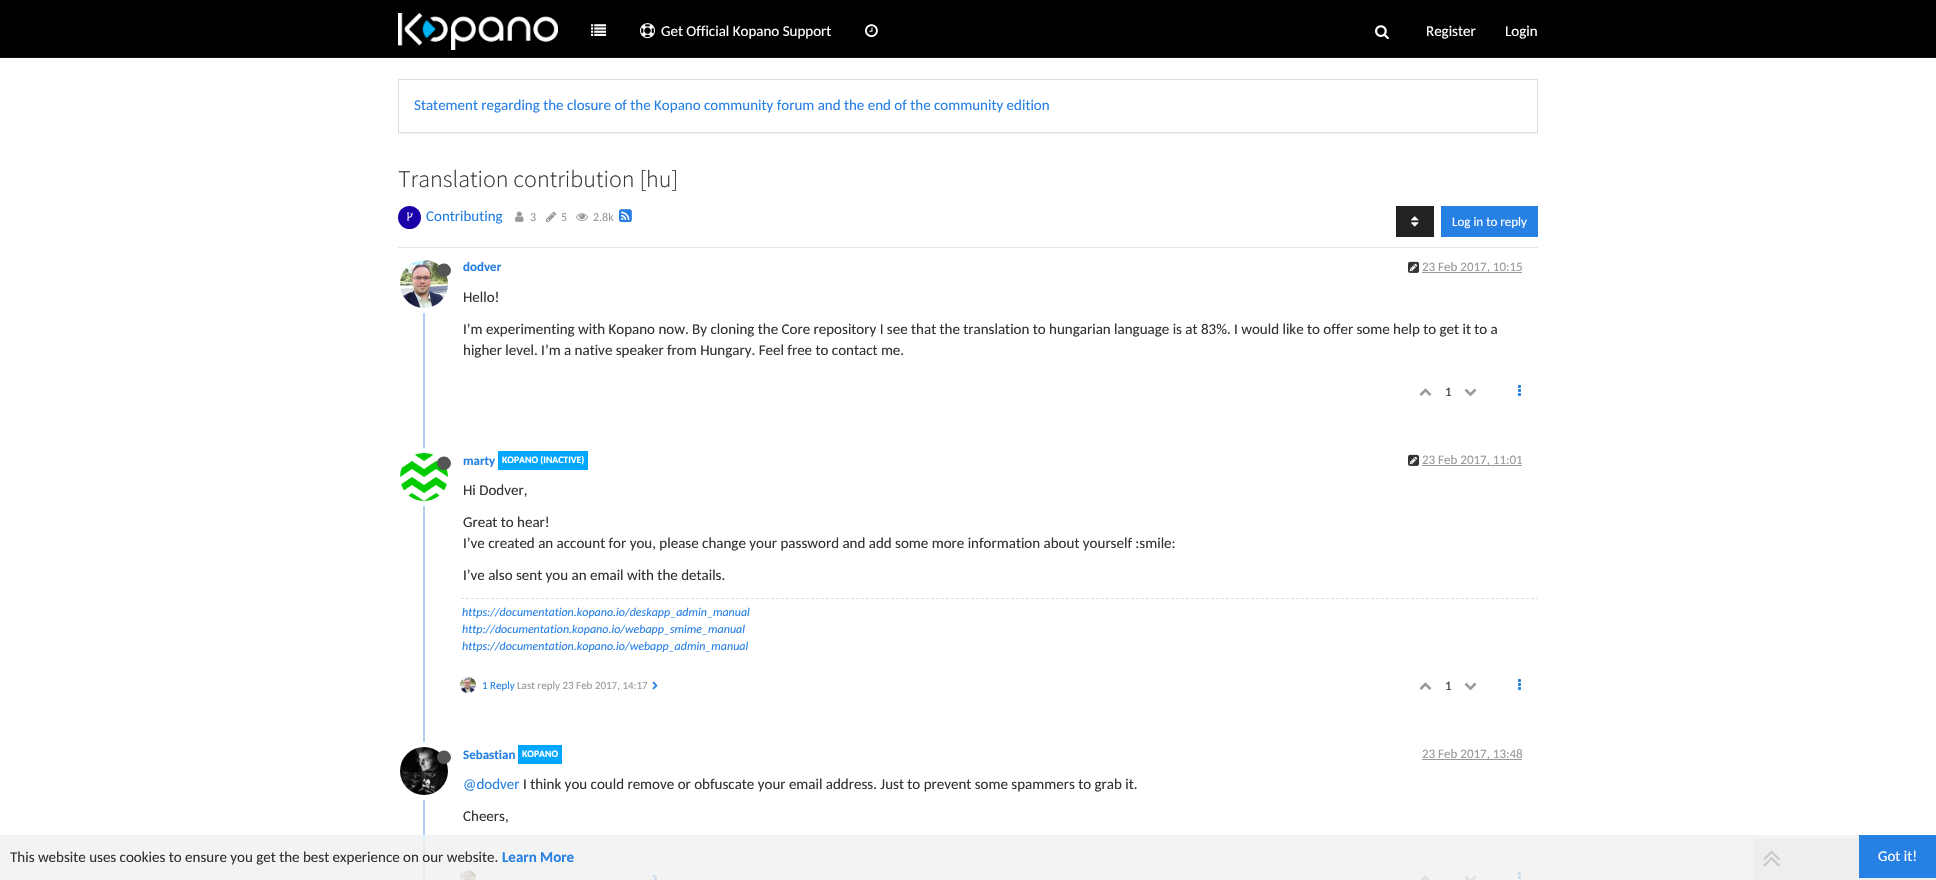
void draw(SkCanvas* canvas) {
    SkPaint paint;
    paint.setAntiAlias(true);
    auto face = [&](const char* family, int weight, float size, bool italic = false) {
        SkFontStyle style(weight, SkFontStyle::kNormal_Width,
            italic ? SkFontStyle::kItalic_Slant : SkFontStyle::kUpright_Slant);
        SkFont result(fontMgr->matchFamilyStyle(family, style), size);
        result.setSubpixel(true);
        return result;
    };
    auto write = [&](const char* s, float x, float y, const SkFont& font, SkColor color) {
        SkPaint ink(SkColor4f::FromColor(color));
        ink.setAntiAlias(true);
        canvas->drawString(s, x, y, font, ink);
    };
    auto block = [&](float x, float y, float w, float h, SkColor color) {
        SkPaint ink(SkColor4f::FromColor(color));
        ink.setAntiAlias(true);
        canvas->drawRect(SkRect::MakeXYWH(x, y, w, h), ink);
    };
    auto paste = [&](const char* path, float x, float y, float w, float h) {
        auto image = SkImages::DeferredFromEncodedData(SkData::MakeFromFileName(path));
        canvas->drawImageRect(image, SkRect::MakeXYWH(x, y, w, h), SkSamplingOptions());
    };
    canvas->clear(SK_ColorWHITE);
    block(0, 0, 1936, 57, SK_ColorBLACK);
    block(0, 57, 1936, 1, SkColorSetRGB(18, 18, 18));
    paste("pic1.png", 398, 13, 160, 37);
    paste("pic2.png", 591, 24, 15, 12);
    paste("pic3.png", 640, 23, 15, 16);
    auto kFont1 = face("Carlito", 400, 15);
    write("Get Official Kopano Support", 661, 36, kFont1, SK_ColorWHITE);
    paste("pic4.png", 865, 24, 13, 14);
    paste("pic5.png", 1375, 25, 14, 15);
    write("Register", 1426, 36, kFont1, SK_ColorWHITE);
    write("Login", 1505, 36, kFont1, SK_ColorWHITE);
    canvas->save();
    canvas->clipRect(SkRect::MakeXYWH(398, 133, 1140, 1));
    paint.setColor(SkColorSetARGB(13, 0, 0, 0));
    paint.setMaskFilter(SkMaskFilter::MakeBlur(kNormal_SkBlurStyle, 0.5f));
    canvas->drawRect(SkRect::MakeXYWH(398, 80, 1140, 54), paint);
    paint.setMaskFilter(nullptr);
    canvas->restore();
    paint.setStyle(SkPaint::kStroke_Style);
    paint.setStrokeWidth(1);
    paint.setColor(SkColorSetRGB(221, 221, 221));
    canvas->drawRect(SkRect::MakeXYWH(398.5f, 79.5f, 1139, 53), paint);
    write("Statement regarding the closure of the Kopano community forum and the end of the community edition", 414, 110, kFont1, SkColorSetRGB(39, 128, 227));
    auto kFont2 = face("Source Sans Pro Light", 300, 24);
    write("Translation contribution [hu]", 398, 187, kFont2, SkColorSetRGB(51, 51, 51));
    block(398, 247, 1140, 1, SkColorSetRGB(230, 230, 230));
    paint.setStyle(SkPaint::kFill_Style);
    paint.setColor(SkColorSetRGB(25, 0, 168));
    canvas->drawCircle(409.5f, 217.5f, 11.5f, paint);
    paste("pic6.png", 407, 212, 6, 9);
    write("Contributing", 426, 221, kFont1, SkColorSetRGB(39, 128, 227));
    paste("pic7.png", 515, 211, 9, 11);
    auto kFont3 = face("Carlito", 400, 12);
    write("3", 530, 221, kFont3, SkColorSetRGB(153, 153, 153));
    paste("pic8.png", 546, 211, 11, 11);
    write("5", 561, 221, kFont3, SkColorSetRGB(153, 153, 153));
    paste("pic9.png", 576, 213, 12, 8);
    write("2.8k", 593, 221, kFont3, SkColorSetRGB(153, 153, 153));
    paste("pic10.png", 619, 209, 13, 14);
    block(1396, 206, 38, 31, SkColorSetRGB(34, 34, 34));
    paste("pic11.png", 1411, 216, 8, 11);
    block(1441, 206, 97, 31, SkColorSetRGB(39, 128, 227));
    auto kFont4 = face("Carlito", 400, 13);
    write("Log in to reply", 1452, 226, kFont4, SK_ColorWHITE);
    block(423, 258, 2, 622, SkColorSetRGB(174, 208, 245));
    paint.setStyle(SkPaint::kStroke_Style);
    paint.setStrokeWidth(5);
    paint.setColor(SK_ColorWHITE);
    canvas->drawCircle(424, 284, 26.5f, paint);
    paste("pic12.png", 400, 260, 48, 48);
    paint.setStyle(SkPaint::kFill_Style);
    paint.setColor(SkColorSetRGB(85, 85, 85));
    canvas->drawPath(SkPathBuilder().moveTo(450, 267).cubicTo(454.5f, 274.5f, 442.5f, 281.5f, 438, 273.5f).cubicTo(433.5f, 266, 445, 259, 450, 267).close().detach(), paint);
    auto kFont5 = face("Carlito", 700, 13);
    write("dodver", 463, 271, kFont5, SkColorSetRGB(39, 128, 227));
    paste("pic13.png", 1408, 261, 12, 12);
    block(1422, 272, 100, 1, SkColorSetRGB(153, 153, 153));
    write("23 Feb 2017, 10:15", 1422, 271, kFont4, SkColorSetRGB(153, 153, 153));
    write("Hello!", 463, 302, kFont1, SkColorSetRGB(51, 51, 51));
    write("I’m experimenting with Kopano now. By cloning the Core repository I see that the translation to hungarian language is at 83%. I would like to offer some help to get it to a", 463, 334, kFont1, SkColorSetRGB(51, 51, 51));
    write("higher level. I’m a native speaker from Hungary. Feel free to contact me.", 463, 355, kFont1, SkColorSetRGB(51, 51, 51));
    paste("pic14.png", 1419, 388, 13, 8);
    write("1", 1445, 396, kFont4, SkColorSetRGB(51, 51, 51));
    paste("pic15.png", 1464, 388, 13, 9);
    paste("pic16.png", 1518, 385, 3, 11);
    paint.setStyle(SkPaint::kStroke_Style);
    paint.setColor(SK_ColorWHITE);
    canvas->drawCircle(424, 477, 26.5f, paint);
    paste("pic17.png", 400, 453, 48, 48);
    paint.setStyle(SkPaint::kFill_Style);
    paint.setColor(SkColorSetRGB(85, 85, 85));
    canvas->drawPath(SkPathBuilder().moveTo(450, 460).cubicTo(454.5f, 467.5f, 442.5f, 474.5f, 438, 466.5f).cubicTo(433.5f, 459, 445, 452, 450, 460).close().detach(), paint);
    write("marty", 463, 465, kFont5, SkColorSetRGB(39, 128, 227));
    block(498, 451, 90, 19, SkColorSetRGB(0, 166, 255));
    auto kFont6 = face("Carlito", 700, 9.75f);
    write("KOPANO (INACTIVE)", 502, 463, kFont6, SK_ColorWHITE);
    paste("pic13.png", 1408, 454, 12, 12);
    block(1422, 465, 100, 1, SkColorSetRGB(153, 153, 153));
    write("23 Feb 2017, 11:01", 1422, 464, kFont4, SkColorSetRGB(153, 153, 153));
    write("Hi Dodver,", 463, 495, kFont1, SkColorSetRGB(51, 51, 51));
    write("Great to hear!", 463, 527, kFont1, SkColorSetRGB(51, 51, 51));
    write("I’ve created an account for you, please change your password and add some more information about yourself :smile:", 463, 548, kFont1, SkColorSetRGB(51, 51, 51));
    write("I’ve also sent you an email with the details.", 463, 580, kFont1, SkColorSetRGB(51, 51, 51));
    paint.setStyle(SkPaint::kStroke_Style);
    paint.setStrokeWidth(1);
    paint.setColor(SkColorSetRGB(222, 222, 222));
    paint.setPathEffect(SkDashPathEffect::Make({{3, 2}}, 0));
    canvas->drawPath(SkPathBuilder().moveTo(461, 598.5f).lineTo(1538, 598.5f).detach(), paint);
    paint.setPathEffect(nullptr);
    auto kFont7 = face("Carlito", 400, 12, true);
    write("https://documentation.kopano.io/deskapp_admin_manual", 462, 616, kFont7, SkColorSetRGB(39, 128, 227));
    write("http://documentation.kopano.io/webapp_smime_manual", 462, 633, kFont7, SkColorSetRGB(39, 128, 227));
    write("https://documentation.kopano.io/webapp_admin_manual", 462, 650, kFont7, SkColorSetRGB(39, 128, 227));
    paste("pic18.png", 460, 677, 16, 16);
    auto kFont8 = face("Carlito", 400, 11);
    write("1 Reply", 482, 689, kFont8, SkColorSetRGB(39, 128, 227));
    write("Last reply 23 Feb 2017, 14:17", 517, 689, kFont8, SkColorSetRGB(153, 153, 153));
    paste("pic19.png", 652, 681, 6, 9);
    paste("pic14.png", 1419, 682, 13, 8);
    write("1", 1445, 690, kFont4, SkColorSetRGB(51, 51, 51));
    paste("pic15.png", 1464, 682, 13, 9);
    paste("pic16.png", 1518, 679, 3, 11);
    paint.setStrokeWidth(5);
    paint.setColor(SK_ColorWHITE);
    canvas->drawCircle(424, 771, 26.5f, paint);
    paste("pic20.png", 400, 747, 48, 48);
    paint.setStyle(SkPaint::kFill_Style);
    paint.setColor(SkColorSetRGB(85, 85, 85));
    canvas->drawPath(SkPathBuilder().moveTo(450, 754).cubicTo(454.5f, 761.5f, 442.5f, 768.5f, 438, 760.5f).cubicTo(433.5f, 753, 445, 746, 450, 754).close().detach(), paint);
    write("Sebastian", 463, 759, kFont5, SkColorSetRGB(39, 128, 227));
    block(518, 745, 44, 19, SkColorSetRGB(0, 166, 255));
    write("KOPANO", 522, 757, kFont6, SK_ColorWHITE);
    block(1422, 759, 100, 1, SkColorSetRGB(153, 153, 153));
    write("23 Feb 2017, 13:48", 1422, 758, kFont4, SkColorSetRGB(153, 153, 153));
    write("@dodver", 463, 789, kFont1, SkColorSetRGB(39, 128, 227));
    write("I think you could remove or obfuscate your email address. Just to prevent some spammers to grab it.", 523, 789, kFont1, SkColorSetRGB(51, 51, 51));
    write("Cheers,", 463, 821, kFont1, SkColorSetRGB(51, 51, 51));
    paste("pic21.png", 460, 870, 16, 10);
    paste("pic22.png", 652, 874, 6, 6);
    paste("pic23.png", 1420, 875, 10, 5);
    paste("pic24.png", 1464, 875, 13, 5);
    paste("pic25.png", 1518, 872, 3, 7);
    block(1753, 838, 183, 42, SkColorSetRGB(230, 230, 230));
    paste("pic26.png", 1763, 850, 17, 17);
    block(0, 835, 1936, 45, SkColorSetARGB(204, 240, 240, 240));
    write("This website uses cookies to ensure you get the best experience on our website.", 10, 862, kFont1, SkColorSetRGB(51, 51, 51));
    auto kFont9 = face("Carlito", 700, 15);
    write("Learn More", 502, 862, kFont9, SkColorSetRGB(39, 128, 227));
    block(1859, 835, 77, 43, SkColorSetRGB(39, 128, 227));
    write("Got it!", 1878, 861, kFont1, SK_ColorWHITE);
}
